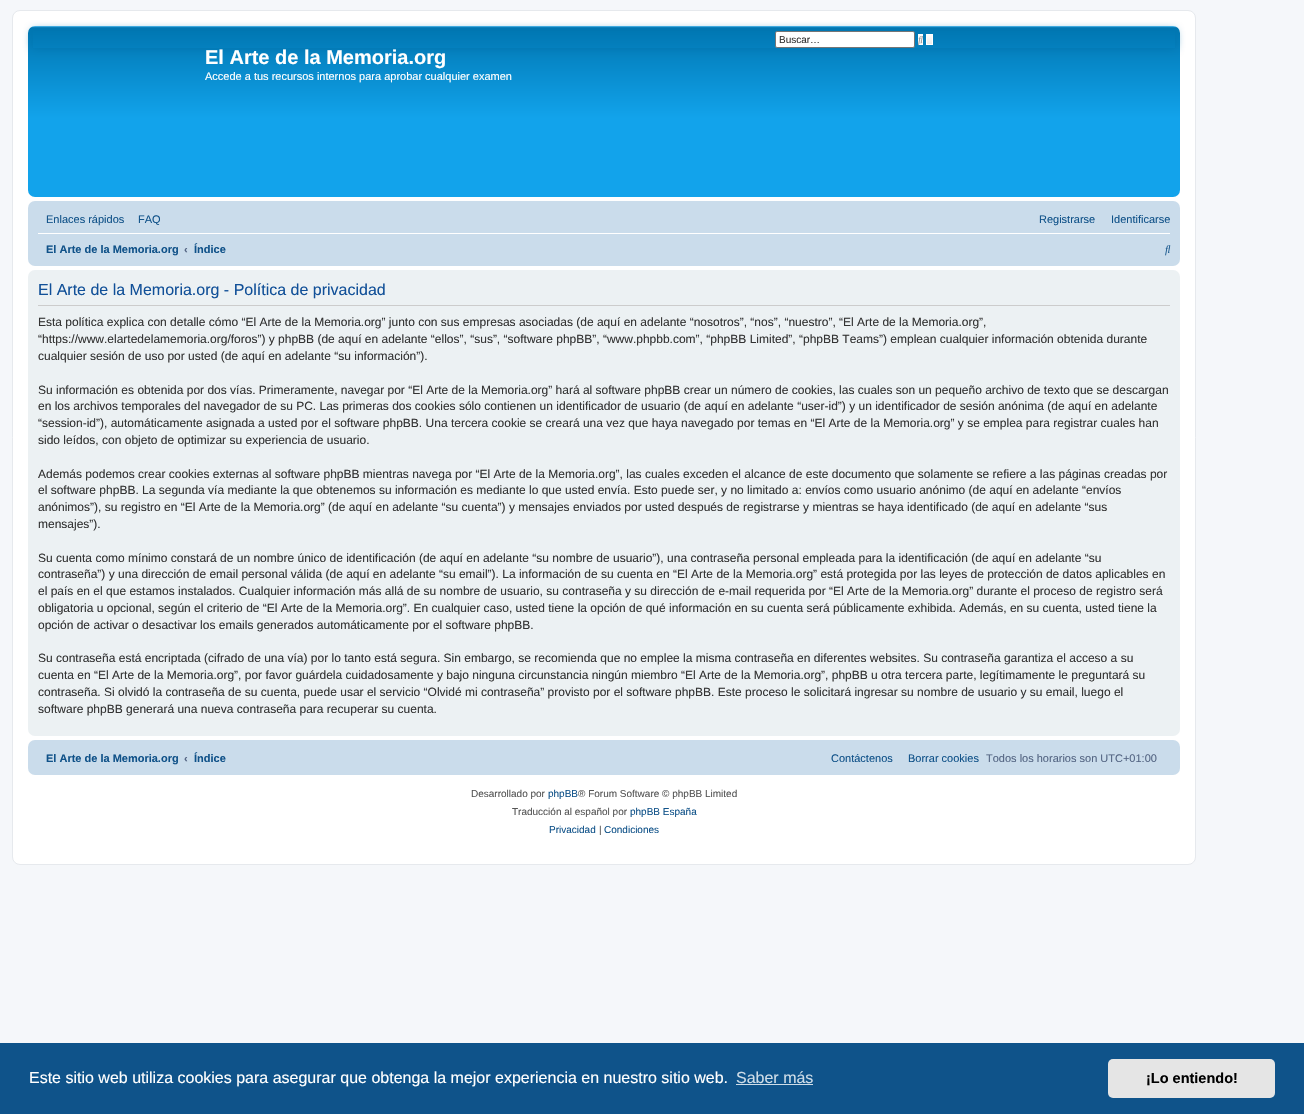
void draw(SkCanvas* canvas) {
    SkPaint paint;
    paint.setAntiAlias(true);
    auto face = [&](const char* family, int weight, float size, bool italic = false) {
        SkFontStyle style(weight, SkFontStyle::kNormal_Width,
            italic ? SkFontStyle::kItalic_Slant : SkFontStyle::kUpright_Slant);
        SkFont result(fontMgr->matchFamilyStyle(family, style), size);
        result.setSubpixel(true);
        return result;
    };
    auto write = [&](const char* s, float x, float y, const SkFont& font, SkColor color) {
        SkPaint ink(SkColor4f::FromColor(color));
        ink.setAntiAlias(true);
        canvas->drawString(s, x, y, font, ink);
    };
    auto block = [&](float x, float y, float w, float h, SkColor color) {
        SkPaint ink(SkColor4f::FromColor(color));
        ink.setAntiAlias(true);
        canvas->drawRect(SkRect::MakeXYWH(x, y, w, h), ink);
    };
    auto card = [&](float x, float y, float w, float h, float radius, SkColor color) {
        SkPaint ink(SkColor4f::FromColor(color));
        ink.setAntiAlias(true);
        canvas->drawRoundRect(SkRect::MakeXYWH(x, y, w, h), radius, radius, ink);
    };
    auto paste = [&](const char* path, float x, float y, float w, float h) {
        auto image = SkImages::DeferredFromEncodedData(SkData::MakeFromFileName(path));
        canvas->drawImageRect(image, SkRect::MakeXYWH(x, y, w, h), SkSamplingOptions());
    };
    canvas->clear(SkColorSetRGB(245, 247, 250));
    paint.setColor(SK_ColorWHITE);
    canvas->drawRoundRect(SkRect::MakeXYWH(12.5f, 10.5f, 1183, 854), 7.5f, 7.5f, paint);
    paint.setStyle(SkPaint::kStroke_Style);
    paint.setStrokeWidth(1);
    paint.setColor(SkColorSetRGB(230, 233, 237));
    canvas->drawRoundRect(SkRect::MakeXYWH(12.5f, 10.5f, 1183, 854), 7.5f, 7.5f, paint);
    paint.setStyle(SkPaint::kFill_Style);
    {
        const SkColor colors[] = {SkColorSetRGB(106, 206, 255), SkColorSetRGB(0, 118, 177), SkColorSetRGB(18, 163, 235), SkColorSetRGB(18, 163, 235)};
        const float stops[] = {0, 0.01f, 0.54f, 1};
        const SkPoint ends[] = {{604, 26}, {604, 197}};
        paint.setShader(SkGradientShader::MakeLinear(ends, colors, stops, 4, SkTileMode::kClamp));
        paint.setAlpha(255);
    }
    canvas->drawRoundRect(SkRect::MakeXYWH(28, 26, 1152, 171), 7, 7, paint);
    canvas->save();
    canvas->clipPath(SkPathBuilder(SkPathFillType::kEvenOdd).moveTo(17, 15).lineTo(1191, 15).lineTo(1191, 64).lineTo(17, 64).close().moveTo(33, 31).lineTo(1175, 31).lineTo(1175, 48).lineTo(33, 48).close().detach(), true);
    paint.setShader(nullptr);
    paint.setColor(SkColorSetRGB(0, 117, 176));
    paint.setMaskFilter(SkMaskFilter::MakeBlur(kNormal_SkBlurStyle, 5));
    canvas->drawRect(SkRect::MakeXYWH(33, 31, 1142, 17), paint);
    paint.setMaskFilter(nullptr);
    canvas->restore();
    paint.setColor(SK_ColorWHITE);
    canvas->drawRoundRect(SkRect::MakeXYWH(775.5f, 31.5f, 139, 16), 1.5f, 1.5f, paint);
    paint.setStyle(SkPaint::kStroke_Style);
    paint.setColor(SkColorSetRGB(118, 118, 118));
    canvas->drawRoundRect(SkRect::MakeXYWH(775.5f, 31.5f, 139, 16), 1.5f, 1.5f, paint);
    auto kFont1 = face("Liberation Sans", 400, 10);
    write("Buscar…", 779, 43, kFont1, SkColorSetRGB(51, 51, 51));
    paint.setStyle(SkPaint::kFill_Style);
    {
        const SkColor colors[] = {SK_ColorWHITE, SkColorSetRGB(233, 233, 233)};
        const float stops[] = {0, 1};
        const SkPoint ends[] = {{921, 34}, {921, 45}};
        paint.setShader(SkGradientShader::MakeLinear(ends, colors, stops, 2, SkTileMode::kClamp));
        paint.setAlpha(255);
    }
    canvas->drawRect(SkRect::MakeXYWH(919, 34, 3, 11), paint);
    paint.setStyle(SkPaint::kStroke_Style);
    paint.setShader(nullptr);
    paint.setColor(SK_ColorWHITE);
    canvas->drawRect(SkRect::MakeXYWH(918.5f, 34.5f, 4, 10), paint);
    paste("pic1.png", 918, 36, 5, 10);
    paint.setStyle(SkPaint::kFill_Style);
    {
        const SkColor colors[] = {SK_ColorWHITE, SkColorSetRGB(233, 233, 233)};
        const float stops[] = {0, 1};
        const SkPoint ends[] = {{930, 34}, {930, 45}};
        paint.setShader(SkGradientShader::MakeLinear(ends, colors, stops, 2, SkTileMode::kClamp));
        paint.setAlpha(255);
    }
    canvas->drawRect(SkRect::MakeXYWH(927, 34, 5, 11), paint);
    paint.setStyle(SkPaint::kStroke_Style);
    paint.setShader(nullptr);
    paint.setColor(SK_ColorWHITE);
    canvas->drawRect(SkRect::MakeXYWH(926.5f, 34.5f, 6, 10), paint);
    auto kFont2 = face("Liberation Sans", 700, 20);
    write("El Arte de la Memoria.org", 205, 64, kFont2, SK_ColorWHITE);
    auto kFont3 = face("Liberation Sans", 400, 11);
    write("Accede a tus recursos internos para aprobar cualquier examen", 205, 80, kFont3, SK_ColorWHITE);
    card(28, 201, 1152, 65, 7, SkColorSetRGB(202, 220, 235));
    write("Enlaces rápidos", 46, 223, kFont3, SkColorSetRGB(16, 82, 137));
    write("FAQ", 138, 223, kFont3, SkColorSetRGB(16, 82, 137));
    write("Registrarse", 1039, 223, kFont3, SkColorSetRGB(16, 82, 137));
    write("Identificarse", 1111, 223, kFont3, SkColorSetRGB(16, 82, 137));
    block(38, 233, 1132, 1, SK_ColorWHITE);
    auto kFont4 = face("Liberation Sans", 700, 11);
    write("El Arte de la Memoria.org", 46, 253, kFont4, SkColorSetRGB(16, 82, 137));
    write("‹", 184, 253, kFont4, SkColorSetRGB(83, 100, 130));
    write("Índice", 194, 253, kFont4, SkColorSetRGB(16, 82, 137));
    paste("pic2.png", 1165, 245, 6, 11);
    card(28, 270, 1152, 466, 7, SkColorSetRGB(236, 241, 243));
    block(38, 305, 1132, 1, SkColorSetRGB(204, 204, 204));
    auto kFont5 = face("Liberation Sans", 400, 16);
    write("El Arte de la Memoria.org - Política de privacidad", 38, 295, kFont5, SkColorSetRGB(17, 80, 152));
    auto kFont6 = face("Liberation Sans", 400, 12);
    write("Esta política explica con detalle cómo “El Arte de la Memoria.org” junto con sus empresas asociadas (de aquí en adelante “nosotros”, “nos”, “nuestro”, “El Arte de la Memoria.org”,", 38, 326, kFont6, SkColorSetRGB(51, 51, 51));
    write("“https://www.elartedelamemoria.org/foros”) y phpBB (de aquí en adelante “ellos”, “sus”, “software phpBB”, “www.phpbb.com”, “phpBB Limited”, “phpBB Teams”) emplean cualquier información obtenida durante", 38, 343, kFont6, SkColorSetRGB(51, 51, 51));
    write("cualquier sesión de uso por usted (de aquí en adelante “su información”).", 38, 360, kFont6, SkColorSetRGB(51, 51, 51));
    write("Su información es obtenida por dos vías. Primeramente, navegar por “El Arte de la Memoria.org” hará al software phpBB crear un número de cookies, las cuales son un pequeño archivo de texto que se descargan", 38, 394, kFont6, SkColorSetRGB(51, 51, 51));
    write("en los archivos temporales del navegador de su PC. Las primeras dos cookies sólo contienen un identificador de usuario (de aquí en adelante “user-id”) y un identificador de sesión anónima (de aquí en adelante", 38, 410, kFont6, SkColorSetRGB(51, 51, 51));
    write("“session-id”), automáticamente asignada a usted por el software phpBB. Una tercera cookie se creará una vez que haya navegado por temas en “El Arte de la Memoria.org” y se emplea para registrar cuales han", 38, 427, kFont6, SkColorSetRGB(51, 51, 51));
    write("sido leídos, con objeto de optimizar su experiencia de usuario.", 38, 444, kFont6, SkColorSetRGB(51, 51, 51));
    write("Además podemos crear cookies externas al software phpBB mientras navega por “El Arte de la Memoria.org”, las cuales exceden el alcance de este documento que solamente se refiere a las páginas creadas por", 38, 478, kFont6, SkColorSetRGB(51, 51, 51));
    write("el software phpBB. La segunda vía mediante la que obtenemos su información es mediante lo que usted envía. Esto puede ser, y no limitado a: envíos como usuario anónimo (de aquí en adelante “envíos", 38, 494, kFont6, SkColorSetRGB(51, 51, 51));
    write("anónimos”), su registro en “El Arte de la Memoria.org” (de aquí en adelante “su cuenta”) y mensajes enviados por usted después de registrarse y mientras se haya identificado (de aquí en adelante “sus", 38, 511, kFont6, SkColorSetRGB(51, 51, 51));
    write("mensajes”).", 38, 528, kFont6, SkColorSetRGB(51, 51, 51));
    write("Su cuenta como mínimo constará de un nombre único de identificación (de aquí en adelante “su nombre de usuario”), una contraseña personal empleada para la identificación (de aquí en adelante “su", 38, 562, kFont6, SkColorSetRGB(51, 51, 51));
    write("contraseña”) y una dirección de email personal válida (de aquí en adelante “su email”). La información de su cuenta en “El Arte de la Memoria.org” está protegida por las leyes de protección de datos aplicables en", 38, 578, kFont6, SkColorSetRGB(51, 51, 51));
    write("el país en el que estamos instalados. Cualquier información más allá de su nombre de usuario, su contraseña y su dirección de e-mail requerida por “El Arte de la Memoria.org” durante el proceso de registro será", 38, 595, kFont6, SkColorSetRGB(51, 51, 51));
    write("obligatoria u opcional, según el criterio de “El Arte de la Memoria.org”. En cualquier caso, usted tiene la opción de qué información en su cuenta será públicamente exhibida. Además, en su cuenta, usted tiene la", 38, 612, kFont6, SkColorSetRGB(51, 51, 51));
    write("opción de activar o desactivar los emails generados automáticamente por el software phpBB.", 38, 629, kFont6, SkColorSetRGB(51, 51, 51));
    write("Su contraseña está encriptada (cifrado de una vía) por lo tanto está segura. Sin embargo, se recomienda que no emplee la misma contraseña en diferentes websites. Su contraseña garantiza el acceso a su", 38, 662, kFont6, SkColorSetRGB(51, 51, 51));
    write("cuenta en “El Arte de la Memoria.org”, por favor guárdela cuidadosamente y bajo ninguna circunstancia ningún miembro “El Arte de la Memoria.org”, phpBB u otra tercera parte, legítimamente le preguntará su", 38, 679, kFont6, SkColorSetRGB(51, 51, 51));
    write("contraseña. Si olvidó la contraseña de su cuenta, puede usar el servicio “Olvidé mi contraseña” provisto por el software phpBB. Este proceso le solicitará ingresar su nombre de usuario y su email, luego el", 38, 696, kFont6, SkColorSetRGB(51, 51, 51));
    write("software phpBB generará una nueva contraseña para recuperar su cuenta.", 38, 713, kFont6, SkColorSetRGB(51, 51, 51));
    card(28, 740, 1152, 35, 7, SkColorSetRGB(202, 220, 235));
    write("El Arte de la Memoria.org", 46, 762, kFont4, SkColorSetRGB(16, 82, 137));
    write("‹", 184, 762, kFont4, SkColorSetRGB(83, 100, 130));
    write("Índice", 194, 762, kFont4, SkColorSetRGB(16, 82, 137));
    write("Contáctenos", 831, 762, kFont3, SkColorSetRGB(16, 82, 137));
    write("Borrar cookies", 908, 762, kFont3, SkColorSetRGB(16, 82, 137));
    write("Todos los horarios son UTC+01:00", 986, 762, kFont3, SkColorSetRGB(83, 100, 130));
    write("Desarrollado por", 471, 797, kFont1, SkColorSetRGB(85, 85, 85));
    write("phpBB", 548, 797, kFont1, SkColorSetRGB(16, 82, 137));
    write("® Forum Software © phpBB Limited", 578, 797, kFont1, SkColorSetRGB(85, 85, 85));
    write("Traducción al español por", 512, 815, kFont1, SkColorSetRGB(85, 85, 85));
    write("phpBB España", 630, 815, kFont1, SkColorSetRGB(16, 82, 137));
    write("Privacidad", 549, 833, kFont1, SkColorSetRGB(16, 82, 137));
    write("|", 599, 833, kFont1, SkColorSetRGB(85, 85, 85));
    write("Condiciones", 604, 833, kFont1, SkColorSetRGB(16, 82, 137));
    block(0, 1043, 1304, 71, SkColorSetRGB(15, 83, 138));
    write("Este sitio web utiliza cookies para asegurar que obtenga la mejor experiencia en nuestro sitio web.", 29, 1083, kFont5, SK_ColorWHITE);
    write("Saber más", 736, 1083, kFont5, SkColorSetRGB(207, 221, 232));
    block(736, 1084, 77, 1, SkColorSetRGB(207, 221, 232));
    card(1108, 1059, 167, 39, 5, SkColorSetRGB(229, 229, 229));
    auto kFont7 = face("Liberation Sans", 700, 14.5f);
    write("¡Lo entiendo!", 1146, 1083, kFont7, SK_ColorBLACK);
}
